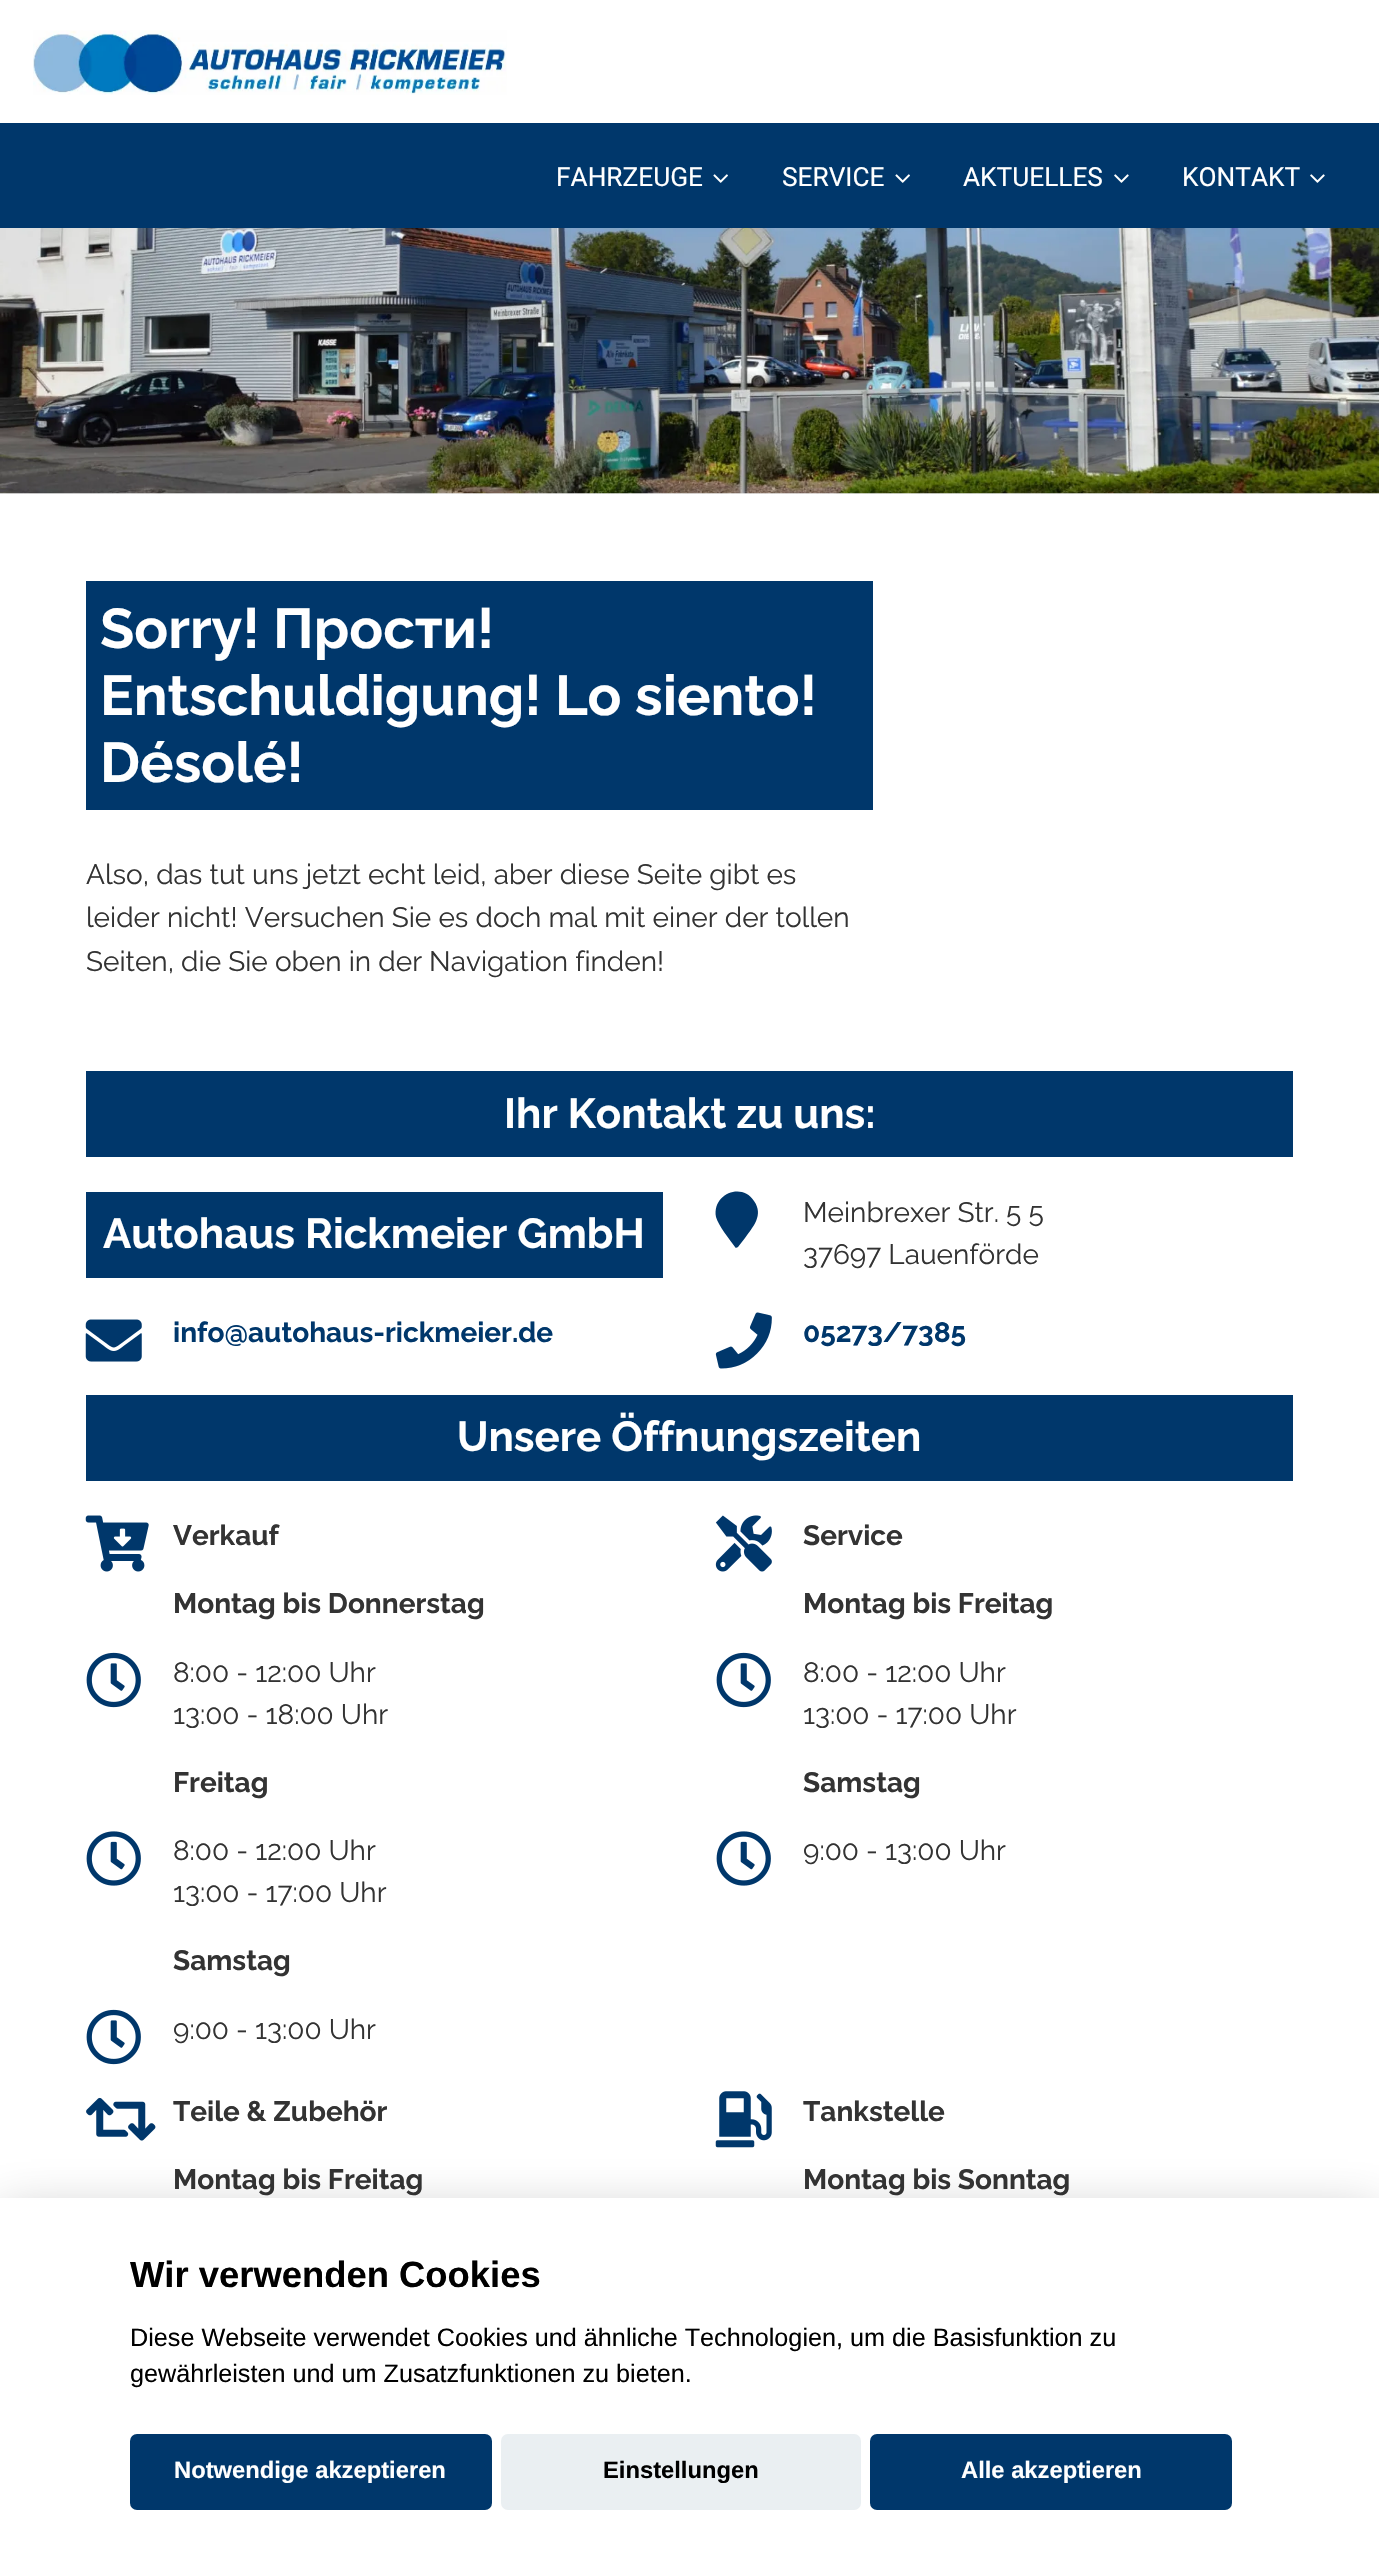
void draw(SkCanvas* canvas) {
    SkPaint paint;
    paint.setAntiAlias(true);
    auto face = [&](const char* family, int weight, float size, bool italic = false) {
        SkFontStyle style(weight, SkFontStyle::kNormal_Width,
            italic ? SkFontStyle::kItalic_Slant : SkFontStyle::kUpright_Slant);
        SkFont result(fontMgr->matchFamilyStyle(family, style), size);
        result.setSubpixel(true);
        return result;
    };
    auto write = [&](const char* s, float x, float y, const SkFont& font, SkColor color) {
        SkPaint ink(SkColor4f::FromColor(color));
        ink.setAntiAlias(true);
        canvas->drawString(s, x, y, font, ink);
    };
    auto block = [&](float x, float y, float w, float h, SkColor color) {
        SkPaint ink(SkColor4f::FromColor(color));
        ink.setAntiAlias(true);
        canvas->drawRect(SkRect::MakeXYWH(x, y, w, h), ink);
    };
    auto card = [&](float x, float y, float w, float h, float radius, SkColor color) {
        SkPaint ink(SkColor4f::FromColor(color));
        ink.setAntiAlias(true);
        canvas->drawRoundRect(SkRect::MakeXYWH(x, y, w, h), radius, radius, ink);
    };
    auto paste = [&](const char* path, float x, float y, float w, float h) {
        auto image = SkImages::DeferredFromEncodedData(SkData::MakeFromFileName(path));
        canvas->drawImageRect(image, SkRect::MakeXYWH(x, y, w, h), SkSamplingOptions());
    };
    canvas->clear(SkColorSetRGB(241, 241, 241));
    block(0, 123, 1379, 105, SkColorSetRGB(0, 55, 107));
    block(0, 0, 1379, 123, SK_ColorWHITE);
    paste("pic1.png", 33, 30, 474, 65);
    auto kFont1 = face("Roboto", 400, 26.25f);
    write("FAHRZEUGE", 556, 186, kFont1, SK_ColorWHITE);
    paste("pic2.png", 713, 174, 15, 9);
    write("SERVICE", 782, 186, kFont1, SK_ColorWHITE);
    paste("pic2.png", 895, 174, 15, 9);
    write("AKTUELLES", 963, 186, kFont1, SK_ColorWHITE);
    paste("pic3.png", 1114, 174, 15, 9);
    write("KONTAKT", 1182, 186, kFont1, SK_ColorWHITE);
    paste("pic3.png", 1310, 174, 15, 9);
    paste("pic4.png", 0, 228, 1379, 266);
    block(0, 494, 1379, 1704, SK_ColorWHITE);
    block(86, 581, 787, 229, SkColorSetRGB(0, 55, 107));
    auto kFont2 = face("Raleway", 700, 56);
    write("Sorry! Прости!", 100, 648, kFont2, SK_ColorWHITE);
    write("Entschuldigung! Lo siento!", 100, 715, kFont2, SK_ColorWHITE);
    write("Désolé!", 100, 782, kFont2, SK_ColorWHITE);
    auto kFont3 = face("Raleway", 400, 28);
    write("Also, das tut uns jetzt echt leid, aber diese Seite gibt es", 86, 884, kFont3, SkColorSetRGB(51, 51, 51));
    write("leider nicht! Versuchen Sie es doch mal mit einer der tollen", 86, 927, kFont3, SkColorSetRGB(51, 51, 51));
    write("Seiten, die Sie oben in der Navigation finden!", 86, 971, kFont3, SkColorSetRGB(51, 51, 51));
    block(86, 1071, 1207, 86, SkColorSetRGB(0, 55, 107));
    auto kFont4 = face("Raleway", 700, 42);
    write("Ihr Kontakt zu uns:", 504, 1128, kFont4, SK_ColorWHITE);
    block(86, 1192, 577, 86, SkColorSetRGB(0, 55, 107));
    write("Autohaus Rickmeier GmbH", 103, 1248, kFont4, SK_ColorWHITE);
    paint.setColor(SkColorSetRGB(0, 55, 107));
    canvas->drawPath(SkPathBuilder().moveTo(735, 1247).cubicTo(730, 1240, 718, 1225, 716, 1217).cubicTo(712, 1194, 742, 1182, 754, 1201).cubicTo(764, 1215, 753, 1227, 745, 1238).lineTo(738, 1247).cubicTo(737, 1248, 735, 1248, 735, 1247).close().detach(), paint);
    write("Meinbrexer Str. 5 5", 803, 1222, kFont3, SkColorSetRGB(51, 51, 51));
    write("37697 Lauenförde", 803, 1264, kFont3, SkColorSetRGB(51, 51, 51));
    paste("pic5.png", 85, 1319, 57, 43);
    auto kFont5 = face("Raleway", 700, 28);
    write("info@autohaus-rickmeier.de", 173, 1342, kFont5, SkColorSetRGB(0, 55, 107));
    paste("pic6.png", 715, 1312, 57, 57);
    write("05273/7385", 803, 1342, kFont5, SkColorSetRGB(0, 55, 107));
    block(86, 1395, 1207, 86, SkColorSetRGB(0, 55, 107));
    write("Unsere Öffnungszeiten", 457, 1451, kFont4, SK_ColorWHITE);
    paste("pic7.png", 85, 1515, 64, 57);
    write("Verkauf", 173, 1545, kFont5, SkColorSetRGB(51, 51, 51));
    write("Montag bis Donnerstag", 173, 1613, kFont5, SkColorSetRGB(51, 51, 51));
    paste("pic8.png", 86, 1652, 55, 56);
    write("8:00 - 12:00 Uhr", 173, 1682, kFont3, SkColorSetRGB(51, 51, 51));
    write("13:00 - 18:00 Uhr", 173, 1724, kFont3, SkColorSetRGB(51, 51, 51));
    write("Freitag", 173, 1792, kFont5, SkColorSetRGB(51, 51, 51));
    paste("pic9.png", 86, 1831, 55, 55);
    write("8:00 - 12:00 Uhr", 173, 1860, kFont3, SkColorSetRGB(51, 51, 51));
    write("13:00 - 17:00 Uhr", 173, 1902, kFont3, SkColorSetRGB(51, 51, 51));
    write("Samstag", 173, 1970, kFont5, SkColorSetRGB(51, 51, 51));
    paste("pic8.png", 86, 2009, 55, 56);
    write("9:00 - 13:00 Uhr", 173, 2039, kFont3, SkColorSetRGB(51, 51, 51));
    paste("pic10.png", 715, 1515, 57, 57);
    write("Service", 803, 1545, kFont5, SkColorSetRGB(51, 51, 51));
    write("Montag bis Freitag", 803, 1613, kFont5, SkColorSetRGB(51, 51, 51));
    paste("pic8.png", 716, 1652, 55, 56);
    write("8:00 - 12:00 Uhr", 803, 1682, kFont3, SkColorSetRGB(51, 51, 51));
    write("13:00 - 17:00 Uhr", 803, 1724, kFont3, SkColorSetRGB(51, 51, 51));
    write("Samstag", 803, 1792, kFont5, SkColorSetRGB(51, 51, 51));
    paste("pic9.png", 716, 1831, 55, 55);
    write("9:00 - 13:00 Uhr", 803, 1860, kFont3, SkColorSetRGB(51, 51, 51));
    paste("pic11.png", 86, 2097, 70, 44);
    write("Teile & Zubehör", 173, 2121, kFont5, SkColorSetRGB(51, 51, 51));
    write("Montag bis Freitag", 173, 2189, kFont5, SkColorSetRGB(51, 51, 51));
    paste("pic12.png", 715, 2091, 57, 57);
    write("Tankstelle", 803, 2121, kFont5, SkColorSetRGB(51, 51, 51));
    write("Montag bis Sonntag", 803, 2189, kFont5, SkColorSetRGB(51, 51, 51));
    paint.setColor(SkColorSetARGB(71, 2, 2, 3));
    paint.setMaskFilter(SkMaskFilter::MakeBlur(kNormal_SkBlurStyle, 26));
    canvas->drawRect(SkRect::MakeXYWH(0, 2216, 1379, 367), paint);
    paint.setMaskFilter(nullptr);
    block(0, 2198, 1379, 367, SK_ColorWHITE);
    auto kFont6 = face("Liberation Sans", 700, 36.4f);
    write("Wir verwenden Cookies", 130, 2287, kFont6, SK_ColorBLACK);
    auto kFont7 = face("Liberation Sans", 400, 25.2f);
    write("Diese Webseite verwendet Cookies und ähnliche Technologien, um die Basisfunktion zu", 130, 2346, kFont7, SK_ColorBLACK);
    write("gewährleisten und um Zusatzfunktionen zu bieten.", 130, 2382, kFont7, SK_ColorBLACK);
    card(130, 2434, 362, 76, 7, SkColorSetRGB(0, 55, 107));
    auto kFont8 = face("Liberation Sans", 700, 23.75f);
    write("Notwendige akzeptieren", 174, 2478, kFont8, SK_ColorWHITE);
    card(501, 2434, 360, 76, 7, SkColorSetRGB(234, 239, 242));
    write("Einstellungen", 603, 2478, kFont8, SK_ColorBLACK);
    card(870, 2434, 362, 76, 7, SkColorSetRGB(0, 55, 107));
    write("Alle akzeptieren", 961, 2478, kFont8, SK_ColorWHITE);
}
